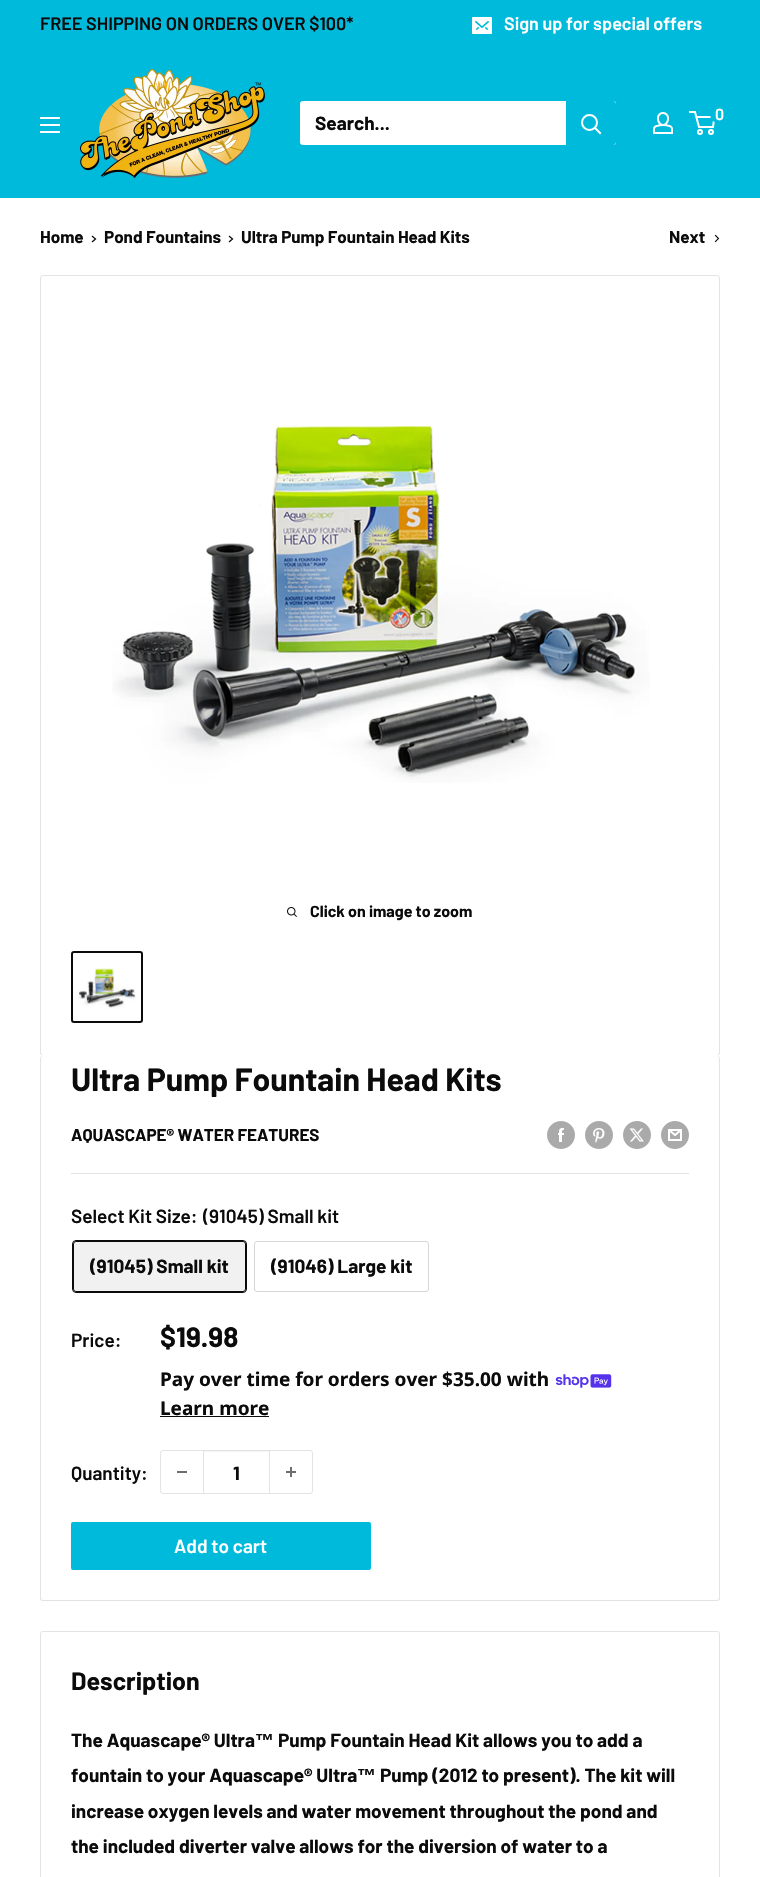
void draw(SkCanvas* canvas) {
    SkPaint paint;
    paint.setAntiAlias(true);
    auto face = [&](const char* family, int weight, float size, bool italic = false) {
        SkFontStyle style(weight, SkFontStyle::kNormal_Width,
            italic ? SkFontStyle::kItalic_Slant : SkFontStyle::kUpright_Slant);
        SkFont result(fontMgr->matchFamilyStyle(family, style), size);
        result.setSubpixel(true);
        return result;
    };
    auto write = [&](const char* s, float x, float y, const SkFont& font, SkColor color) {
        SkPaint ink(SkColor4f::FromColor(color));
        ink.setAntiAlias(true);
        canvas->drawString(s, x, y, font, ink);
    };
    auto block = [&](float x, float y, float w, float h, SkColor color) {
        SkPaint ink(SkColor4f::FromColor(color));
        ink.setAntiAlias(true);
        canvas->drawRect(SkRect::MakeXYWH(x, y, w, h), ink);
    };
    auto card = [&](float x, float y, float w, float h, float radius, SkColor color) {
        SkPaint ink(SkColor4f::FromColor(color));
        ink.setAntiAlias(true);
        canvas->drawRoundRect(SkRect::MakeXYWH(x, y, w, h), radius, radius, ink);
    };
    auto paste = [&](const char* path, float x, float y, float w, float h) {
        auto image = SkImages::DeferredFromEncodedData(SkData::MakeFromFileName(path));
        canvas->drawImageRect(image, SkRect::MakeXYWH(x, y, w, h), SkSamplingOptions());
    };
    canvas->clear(SK_ColorWHITE);
    block(0, 0, 760, 198, SkColorSetRGB(0, 186, 219));
    auto kFont1 = face("Barlow", 600, 18);
    write("FREE SHIPPING ON ORDERS OVER $100*", 40, 30, kFont1, SkColorSetRGB(11, 11, 11));
    paste("pic1.png", 472, 17, 20, 17);
    write("Sign up for special offers", 504, 30, kFont1, SK_ColorWHITE);
    paste("pic2.png", 80, 69, 185, 109);
    paste("pic3.png", 653, 112, 20, 22);
    paint.setStyle(SkPaint::kStroke_Style);
    paint.setStrokeWidth(2);
    paint.setColor(SK_ColorWHITE);
    canvas->drawCircle(700, 132, 2, paint);
    canvas->drawCircle(711, 132, 2, paint);
    canvas->drawPath(SkPathBuilder().moveTo(696.5f, 117).lineTo(714.5f, 117).lineTo(713, 127).lineTo(699, 127).lineTo(695, 112).lineTo(689, 112).detach(), paint);
    paint.setStyle(SkPaint::kFill_Style);
    paint.setColor(SkColorSetRGB(0, 186, 219));
    canvas->drawCircle(720, 114, 10, paint);
    auto kFont2 = face("Barlow", 600, 16);
    write("0", 715, 120, kFont2, SK_ColorWHITE);
    paste("pic4.png", 40, 117, 20, 16);
    card(300, 101, 316, 44, 3, SK_ColorWHITE);
    auto kFont3 = face("Barlow", 700, 19);
    write("Search...", 315, 130, kFont3, SkColorSetRGB(11, 11, 11));
    canvas->drawPath(SkPathBuilder().moveTo(566, 101).lineTo(613, 101).cubicTo(614.5f, 101, 616, 102.5f, 616, 104).lineTo(616, 142).cubicTo(616, 143.5f, 614.5f, 145, 613, 145).lineTo(566, 145).close().detach(), paint);
    paint.setStyle(SkPaint::kStroke_Style);
    paint.setStrokeCap(SkPaint::kSquare_Cap);
    paint.setColor(SK_ColorWHITE);
    canvas->drawPath(SkPathBuilder().moveTo(600, 133).lineTo(595, 128).detach(), paint);
    paint.setStrokeCap(SkPaint::kButt_Cap);
    canvas->drawCircle(589.5f, 122.5f, 7.5f, paint);
    auto kFont4 = face("Barlow", 700, 17);
    write("Home", 40, 243, kFont4, SkColorSetRGB(11, 11, 11));
    paint.setStrokeWidth(1.3f);
    paint.setStrokeCap(SkPaint::kSquare_Cap);
    paint.setColor(SkColorSetRGB(11, 11, 11));
    canvas->drawPath(SkPathBuilder().moveTo(92.5f, 236.5f).lineTo(95.5f, 239).lineTo(92.5f, 241.5f).detach(), paint);
    write("Pond Fountains", 104, 243, kFont4, SkColorSetRGB(11, 11, 11));
    canvas->drawPath(SkPathBuilder().moveTo(229.5f, 236.5f).lineTo(232.5f, 239).lineTo(229.5f, 241.5f).detach(), paint);
    write("Ultra Pump Fountain Head Kits", 241, 243, kFont4, SkColorSetRGB(11, 11, 11));
    write("Next", 669, 243, kFont4, SkColorSetRGB(11, 11, 11));
    paint.setStrokeWidth(1.1f);
    canvas->drawPath(SkPathBuilder().moveTo(715.5f, 235.5f).lineTo(718.5f, 238.5f).lineTo(715.5f, 241.5f).detach(), paint);
    paint.setStrokeWidth(1);
    paint.setStrokeCap(SkPaint::kButt_Cap);
    paint.setColor(SkColorSetRGB(225, 227, 228));
    canvas->drawRoundRect(SkRect::MakeXYWH(40.5f, 275.5f, 679, 780), 2.5f, 2.5f, paint);
    paste("pic5.png", 112, 426, 538, 357);
    paste("pic6.png", 287, 907, 10, 10);
    auto kFont5 = face("Barlow", 700, 16);
    write("Click on image to zoom", 310, 917, kFont5, SkColorSetRGB(11, 11, 11));
    paint.setStrokeWidth(2);
    paint.setColor(SkColorSetRGB(11, 11, 11));
    canvas->drawRoundRect(SkRect::MakeXYWH(72, 952, 70, 70), 2, 2, paint);
    paste("pic7.png", 78, 968, 58, 41);
    paint.setStyle(SkPaint::kFill_Style);
    paint.setColor(SK_ColorWHITE);
    canvas->drawPath(SkPathBuilder().moveTo(43, 1055).cubicTo(41, 1055, 40, 1057, 40, 1059).cubicTo(40, 1057, 41, 1056, 43, 1056).lineTo(717, 1056).cubicTo(719, 1056, 720, 1057, 720, 1059).cubicTo(720, 1057, 719, 1055, 717, 1055).close().detach(), paint);
    paint.setColor(SkColorSetRGB(225, 227, 228));
    canvas->drawPath(SkPathBuilder(SkPathFillType::kEvenOdd).moveTo(43, 1056).lineTo(717, 1056).cubicTo(719, 1056, 720, 1057, 720, 1059).lineTo(720, 1598).cubicTo(720, 1600, 719, 1601, 717, 1601).lineTo(43, 1601).cubicTo(41, 1601, 40, 1600, 40, 1598).lineTo(40, 1059).cubicTo(40, 1057, 41, 1056, 43, 1056).close().moveTo(43, 1056).lineTo(717, 1056).cubicTo(718, 1056, 719, 1057, 719, 1059).lineTo(719, 1598).cubicTo(719, 1599, 718, 1600, 717, 1600).lineTo(43, 1600).cubicTo(42, 1600, 41, 1599, 41, 1598).lineTo(41, 1059).cubicTo(41, 1057, 42, 1056, 43, 1056).close().detach(), paint);
    auto kFont6 = face("Barlow", 700, 32);
    write("Ultra Pump Fountain Head Kits", 71, 1091, kFont6, SkColorSetRGB(11, 11, 11));
    write("AQUASCAPE® WATER FEATURES", 71, 1141, kFont4, SkColorSetRGB(11, 11, 11));
    paste("pic8.png", 547, 1121, 28, 28);
    paste("pic9.png", 585, 1121, 28, 28);
    paste("pic10.png", 623, 1121, 28, 28);
    paste("pic11.png", 661, 1121, 28, 28);
    block(71, 1173, 618, 1, SkColorSetRGB(225, 227, 228));
    auto kFont7 = face("Barlow", 600, 19);
    write("Select Kit Size:", 71, 1223, kFont7, SkColorSetRGB(11, 11, 11));
    write("(91045) Small kit", 203, 1223, kFont7, SkColorSetRGB(11, 11, 11));
    paint.setStyle(SkPaint::kStroke_Style);
    paint.setStrokeWidth(1);
    paint.setColor(SkColorSetRGB(11, 11, 11));
    canvas->drawRoundRect(SkRect::MakeXYWH(72.5f, 1240.5f, 174, 52), 3.5f, 3.5f, paint);
    block(73, 1241, 173, 51, SkColorSetARGB(15, 11, 11, 11));
    canvas->drawRoundRect(SkRect::MakeXYWH(73.5f, 1241.5f, 172, 50), 2.5f, 2.5f, paint);
    write("(91045) Small kit", 90, 1273, kFont3, SkColorSetRGB(11, 11, 11));
    paint.setColor(SkColorSetRGB(212, 214, 216));
    canvas->drawRoundRect(SkRect::MakeXYWH(254.5f, 1241.5f, 174, 50), 2.5f, 2.5f, paint);
    write("(91046) Large kit", 271, 1273, kFont3, SkColorSetRGB(11, 11, 11));
    write("Price:", 71, 1347, kFont7, SkColorSetRGB(11, 11, 11));
    auto kFont8 = face("Barlow", 700, 28);
    write("$19.98", 160, 1347, kFont8, SkColorSetRGB(11, 11, 11));
    auto kFont9 = face("Noto Sans", 700, 19);
    write("Pay over time for orders over $35.00 with", 160, 1386, kFont9, SkColorSetRGB(11, 11, 11));
    paste("pic12.png", 555, 1374, 57, 14);
    write("Learn more", 160, 1415, kFont9, SkColorSetRGB(11, 11, 11));
    block(160, 1416, 109, 1, SkColorSetRGB(11, 11, 11));
    write("Quantity:", 71, 1480, kFont7, SkColorSetRGB(11, 11, 11));
    paint.setColor(SkColorSetRGB(225, 227, 228));
    canvas->drawRoundRect(SkRect::MakeXYWH(160.5f, 1450.5f, 152, 43), 2.5f, 2.5f, paint);
    block(177, 1471, 10, 2, SkColorSetRGB(109, 109, 109));
    block(204, 1451, 65, 1, SkColorSetRGB(243, 244, 244));
    block(269, 1451, 1, 42, SkColorSetRGB(225, 227, 228));
    block(203, 1451, 1, 42, SkColorSetRGB(225, 227, 228));
    write("1", 233, 1480, kFont3, SkColorSetRGB(11, 11, 11));
    paste("pic13.png", 286, 1467, 10, 10);
    card(71, 1522, 300, 48, 2, SkColorSetRGB(0, 186, 219));
    write("Add to cart", 174, 1553, kFont7, SK_ColorWHITE);
    canvas->drawRoundRect(SkRect::MakeXYWH(40.5f, 1631.5f, 679, 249), 2.5f, 2.5f, paint);
    auto kFont10 = face("Barlow", 700, 25);
    write("Description", 71, 1690, kFont10, SkColorSetRGB(11, 11, 11));
    write("The Aquascape® Ultra", 71, 1747, kFont3, SkColorSetRGB(11, 11, 11));
    auto kFont11 = face("Liberation Sans", 700, 19);
    write("™", 255, 1747, kFont11, SkColorSetRGB(11, 11, 11));
    write("Pump Fountain Head Kit allows you to add a", 278, 1747, kFont3, SkColorSetRGB(11, 11, 11));
    write("fountain to your Aquascape® Ultra", 71, 1782, kFont3, SkColorSetRGB(11, 11, 11));
    write("™", 357, 1782, kFont11, SkColorSetRGB(11, 11, 11));
    write("Pump (2012 to present). The kit will", 380, 1782, kFont3, SkColorSetRGB(11, 11, 11));
    write("increase oxygen levels and water movement throughout the pond and", 71, 1818, kFont3, SkColorSetRGB(11, 11, 11));
    write("the included diverter valve allows for the diversion of water to a", 71, 1853, kFont3, SkColorSetRGB(11, 11, 11));
}
